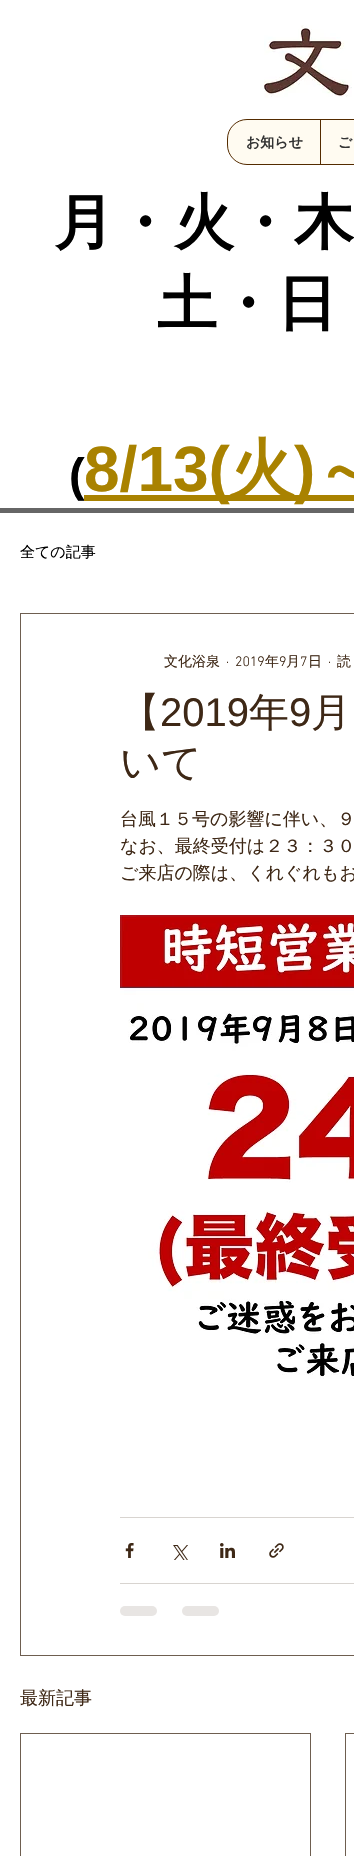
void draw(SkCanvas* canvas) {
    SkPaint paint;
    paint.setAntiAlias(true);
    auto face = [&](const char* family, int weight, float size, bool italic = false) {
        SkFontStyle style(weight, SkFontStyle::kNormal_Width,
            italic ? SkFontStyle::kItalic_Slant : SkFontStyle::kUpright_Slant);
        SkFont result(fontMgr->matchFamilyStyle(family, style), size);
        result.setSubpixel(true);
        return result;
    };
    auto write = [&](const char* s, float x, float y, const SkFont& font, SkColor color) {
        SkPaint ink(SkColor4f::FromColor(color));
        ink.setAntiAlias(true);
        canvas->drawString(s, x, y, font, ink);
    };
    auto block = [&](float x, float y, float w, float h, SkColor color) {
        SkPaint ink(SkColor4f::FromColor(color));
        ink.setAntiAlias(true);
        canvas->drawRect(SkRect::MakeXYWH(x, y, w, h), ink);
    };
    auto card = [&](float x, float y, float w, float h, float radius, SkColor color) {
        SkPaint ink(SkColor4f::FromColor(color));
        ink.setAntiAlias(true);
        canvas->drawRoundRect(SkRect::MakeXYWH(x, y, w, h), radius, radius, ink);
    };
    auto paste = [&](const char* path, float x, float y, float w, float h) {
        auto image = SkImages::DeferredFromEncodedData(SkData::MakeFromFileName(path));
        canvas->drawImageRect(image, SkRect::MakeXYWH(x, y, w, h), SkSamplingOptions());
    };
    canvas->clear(SK_ColorWHITE);
    paste("pic1.png", 264, 25, 88, 73);
    paint.setColor(SkColorSetRGB(255, 251, 241));
    canvas->drawRoundRect(SkRect::MakeXYWH(227.5f, 119.5f, 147, 45), 19.5f, 19.5f, paint);
    paint.setStyle(SkPaint::kStroke_Style);
    paint.setStrokeWidth(1);
    paint.setColor(SkColorSetRGB(84, 43, 0));
    canvas->drawRoundRect(SkRect::MakeXYWH(227.5f, 119.5f, 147, 45), 19.5f, 19.5f, paint);
    auto kFont1 = face("WenQuanYi Zen Hei", 700, 14);
    write("お知らせ", 246, 147, kFont1, SkColorSetRGB(51, 51, 51));
    block(320, 120, 1, 44, SkColorSetRGB(84, 43, 0));
    write("ご", 338, 147, kFont1, SkColorSetRGB(51, 51, 51));
    auto kFont2 = face("WenQuanYi Zen Hei", 700, 60);
    write("月・火・木", 54, 243, kFont2, SK_ColorBLACK);
    write("土・日", 157, 324, kFont2, SK_ColorBLACK);
    auto kFont3 = face("Liberation Sans", 700, 47);
    write("(", 69, 491, kFont3, SK_ColorBLACK);
    block(84, 495, 270, 6, SkColorSetRGB(169, 130, 0));
    auto kFont4 = face("Liberation Sans", 700, 64);
    write("8/13(", 84, 491, kFont4, SkColorSetRGB(169, 130, 0));
    auto kFont5 = face("WenQuanYi Zen Hei", 700, 64);
    write("火", 230, 491, kFont5, SkColorSetRGB(169, 130, 0));
    write(")", 294, 491, kFont4, SkColorSetRGB(169, 130, 0));
    write("～", 315, 491, kFont5, SkColorSetRGB(169, 130, 0));
    block(0, 508, 354, 5, SkColorSetRGB(102, 102, 102));
    auto kFont6 = face("WenQuanYi Zen Hei", 500, 15);
    write("全ての記事", 20, 557, kFont6, SK_ColorBLACK);
    paint.setColor(SkColorSetRGB(110, 94, 80));
    canvas->drawRect(SkRect::MakeXYWH(20.5f, 613.5f, 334, 1042), paint);
    auto kFont7 = face("WenQuanYi Zen Hei", 500, 14);
    write("文化浴泉", 164, 666, kFont7, SkColorSetRGB(62, 40, 22));
    auto kFont8 = face("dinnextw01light", 300, 14);
    write("·", 226, 666, kFont8, SkColorSetRGB(62, 40, 22));
    write("2019", 235, 666, kFont8, SkColorSetRGB(62, 40, 22));
    write("年", 265, 666, kFont7, SkColorSetRGB(62, 40, 22));
    write("9", 279, 666, kFont8, SkColorSetRGB(62, 40, 22));
    write("月", 286, 666, kFont7, SkColorSetRGB(62, 40, 22));
    write("7", 300, 666, kFont8, SkColorSetRGB(62, 40, 22));
    write("日", 308, 666, kFont7, SkColorSetRGB(62, 40, 22));
    write("·", 328, 666, kFont8, SkColorSetRGB(62, 40, 22));
    write("読", 337, 666, kFont7, SkColorSetRGB(62, 40, 22));
    auto kFont9 = face("WenQuanYi Zen Hei", 500, 40);
    write("【", 120, 726, kFont9, SkColorSetRGB(62, 40, 22));
    auto kFont10 = face("Liberation Sans", 400, 40);
    write("2019", 160, 726, kFont10, SkColorSetRGB(62, 40, 22));
    write("年", 249, 726, kFont9, SkColorSetRGB(62, 40, 22));
    write("9", 289, 726, kFont10, SkColorSetRGB(62, 40, 22));
    write("月", 311, 726, kFont9, SkColorSetRGB(62, 40, 22));
    write("いて", 120, 776, kFont9, SkColorSetRGB(62, 40, 22));
    auto kFont11 = face("WenQuanYi Zen Hei", 500, 18);
    write("台風１５号の影響に伴い、９", 120, 825, kFont11, SkColorSetRGB(62, 40, 22));
    write("なお、最終受付は２３：３０", 120, 852, kFont11, SkColorSetRGB(62, 40, 22));
    write("ご来店の際は、くれぐれもお", 120, 879, kFont11, SkColorSetRGB(62, 40, 22));
    paste("pic2.png", 120, 915, 234, 464);
    block(120, 1517, 234, 1, SkColorSetRGB(216, 212, 208));
    paste("pic3.png", 125, 1543, 9, 15);
    paste("pic4.png", 173, 1545, 15, 15);
    paste("pic5.png", 220, 1543, 15, 15);
    paste("pic6.png", 269, 1543, 15, 15);
    block(120, 1583, 234, 1, SkColorSetRGB(216, 212, 208));
    card(120, 1606, 37, 10, 5, SkColorSetRGB(232, 229, 227));
    card(182, 1606, 37, 10, 5, SkColorSetRGB(232, 229, 227));
    write("最新記事", 20, 1704, kFont11, SkColorSetRGB(62, 40, 22));
    canvas->drawRect(SkRect::MakeXYWH(20.5f, 1733.5f, 290, 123), paint);
    canvas->drawRect(SkRect::MakeXYWH(345.5f, 1733.5f, 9, 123), paint);
}
